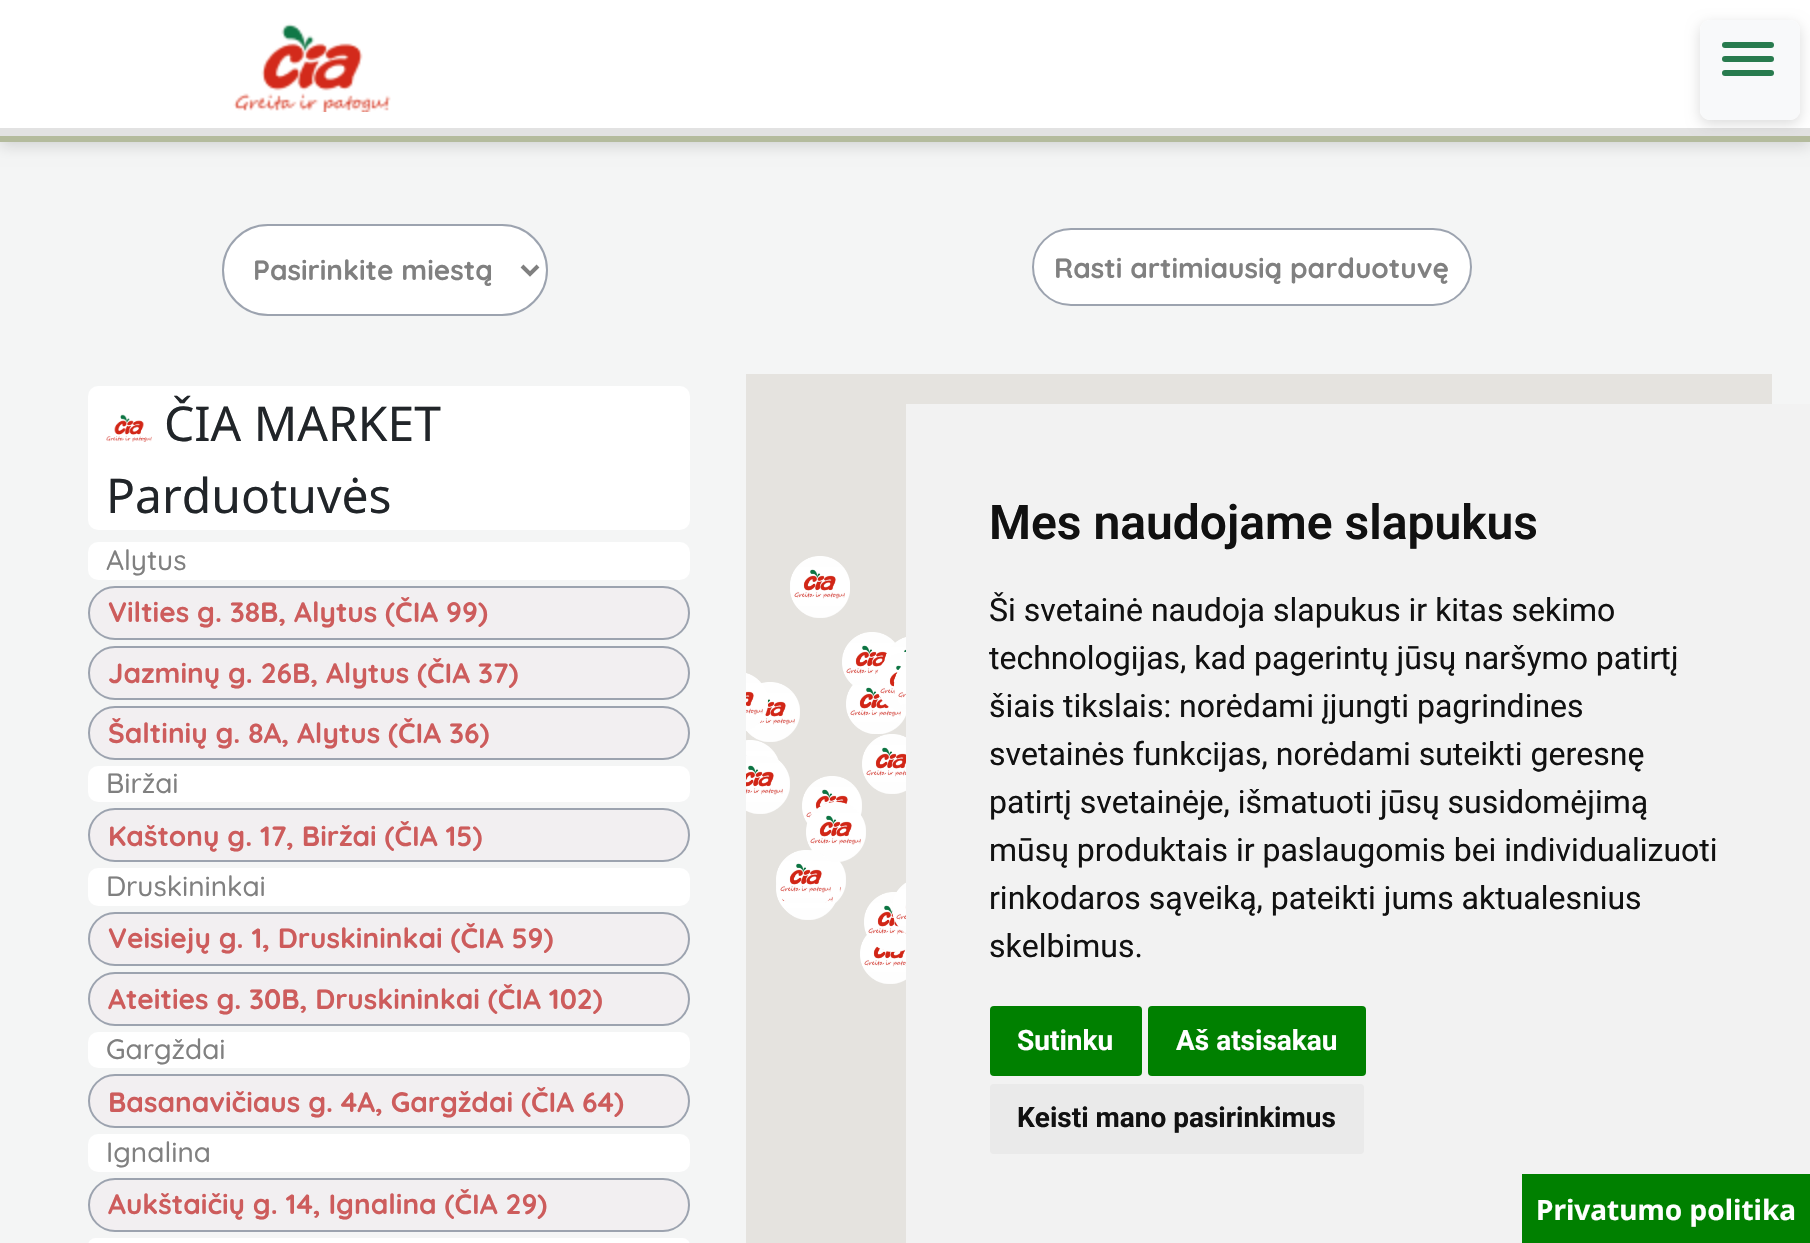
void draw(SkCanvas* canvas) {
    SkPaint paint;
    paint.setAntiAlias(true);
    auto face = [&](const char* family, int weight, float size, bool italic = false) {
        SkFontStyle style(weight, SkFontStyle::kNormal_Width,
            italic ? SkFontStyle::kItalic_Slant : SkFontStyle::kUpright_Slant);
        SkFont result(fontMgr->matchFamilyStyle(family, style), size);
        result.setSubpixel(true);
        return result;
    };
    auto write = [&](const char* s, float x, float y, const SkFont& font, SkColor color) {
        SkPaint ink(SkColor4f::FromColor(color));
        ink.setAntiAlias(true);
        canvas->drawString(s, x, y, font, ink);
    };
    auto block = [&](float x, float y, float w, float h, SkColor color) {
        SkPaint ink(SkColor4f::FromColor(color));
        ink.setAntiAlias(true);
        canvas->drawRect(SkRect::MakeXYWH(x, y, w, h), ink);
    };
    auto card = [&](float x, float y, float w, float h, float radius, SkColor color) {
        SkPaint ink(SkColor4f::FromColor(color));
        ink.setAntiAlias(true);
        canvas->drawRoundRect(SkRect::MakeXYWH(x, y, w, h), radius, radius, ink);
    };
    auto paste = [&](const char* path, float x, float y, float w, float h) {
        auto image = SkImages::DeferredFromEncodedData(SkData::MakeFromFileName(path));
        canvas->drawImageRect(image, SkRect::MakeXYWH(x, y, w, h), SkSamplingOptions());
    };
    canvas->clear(SkColorSetRGB(244, 245, 245));
    paint.setColor(SkColorSetARGB(36, 0, 0, 0));
    paint.setMaskFilter(SkMaskFilter::MakeBlur(kNormal_SkBlurStyle, 7));
    canvas->drawRect(SkRect::MakeXYWH(0, 4, 1810, 142), paint);
    paint.setMaskFilter(nullptr);
    block(0, 0, 1810, 136, SK_ColorWHITE);
    paste("pic1.png", 233, 23, 158, 89);
    canvas->save();
    canvas->clipPath(SkPathBuilder(SkPathFillType::kEvenOdd).moveTo(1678, 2).lineTo(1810, 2).lineTo(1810, 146).lineTo(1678, 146).close().moveTo(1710, 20).lineTo(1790, 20).cubicTo(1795.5f, 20, 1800, 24.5f, 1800, 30).lineTo(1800, 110).cubicTo(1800, 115.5f, 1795.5f, 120, 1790, 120).lineTo(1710, 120).cubicTo(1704.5f, 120, 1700, 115.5f, 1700, 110).lineTo(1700, 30).cubicTo(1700, 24.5f, 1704.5f, 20, 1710, 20).close().detach(), true);
    paint.setMaskFilter(SkMaskFilter::MakeBlur(kNormal_SkBlurStyle, 7));
    canvas->drawRoundRect(SkRect::MakeXYWH(1700, 24, 100, 100), 10, 10, paint);
    paint.setMaskFilter(nullptr);
    canvas->restore();
    card(1700, 20, 100, 100, 10, SkColorSetARGB(250, 248, 249, 250));
    card(1722, 42, 52, 6, 3, SkColorSetRGB(40, 123, 78));
    card(1722, 56, 52, 6, 3, SkColorSetRGB(40, 123, 78));
    card(1722, 70, 52, 6, 3, SkColorSetRGB(40, 123, 78));
    block(0, 128, 1810, 8, SkColorSetARGB(59, 128, 128, 128));
    block(0, 136, 1810, 6, SkColorSetRGB(180, 187, 157));
    paint.setColor(SK_ColorWHITE);
    canvas->drawRoundRect(SkRect::MakeXYWH(223, 225, 324, 90), 45, 45, paint);
    paint.setStyle(SkPaint::kStroke_Style);
    paint.setStrokeWidth(2);
    paint.setColor(SkColorSetRGB(156, 163, 175));
    canvas->drawRoundRect(SkRect::MakeXYWH(223, 225, 324, 90), 45, 45, paint);
    paint.setStrokeWidth(4);
    paint.setColor(SkColorSetRGB(128, 128, 128));
    canvas->drawPath(SkPathBuilder().moveTo(522, 266).lineTo(530, 274).lineTo(538, 266).detach(), paint);
    auto kFont1 = face("Quicksand", 700, 28);
    write("Pasirinkite miestą", 253, 280, kFont1, SkColorSetRGB(128, 128, 128));
    paint.setStyle(SkPaint::kFill_Style);
    paint.setColor(SK_ColorWHITE);
    canvas->drawRoundRect(SkRect::MakeXYWH(1033, 229, 438, 76), 38, 38, paint);
    paint.setStyle(SkPaint::kStroke_Style);
    paint.setStrokeWidth(2);
    paint.setColor(SkColorSetRGB(156, 163, 175));
    canvas->drawRoundRect(SkRect::MakeXYWH(1033, 229, 438, 76), 38, 38, paint);
    write("Rasti artimiausią parduotuvę", 1054, 278, kFont1, SkColorSetRGB(128, 128, 128));
    card(88, 386, 602, 144, 10, SK_ColorWHITE);
    paste("pic2.png", 106, 414, 46, 28);
    auto kFont2 = face("Noto Sans", 400, 48);
    write("ČIA MARKET", 164, 441, kFont2, SkColorSetRGB(33, 37, 41));
    write("Parduotuvės", 106, 513, kFont2, SkColorSetRGB(33, 37, 41));
    card(88, 542, 602, 38, 10, SK_ColorWHITE);
    auto kFont3 = face("Quicksand", 500, 28);
    write("Alytus", 106, 570, kFont3, SkColorSetRGB(128, 128, 128));
    paint.setStyle(SkPaint::kFill_Style);
    paint.setColor(SkColorSetRGB(242, 239, 241));
    canvas->drawRoundRect(SkRect::MakeXYWH(89, 587, 600, 52), 26, 26, paint);
    paint.setStyle(SkPaint::kStroke_Style);
    paint.setColor(SkColorSetRGB(156, 163, 175));
    canvas->drawRoundRect(SkRect::MakeXYWH(89, 587, 600, 52), 26, 26, paint);
    write("Vilties g. 38B, Alytus (ČIA 99)", 108, 622, kFont1, SkColorSetRGB(205, 92, 92));
    paint.setStyle(SkPaint::kFill_Style);
    paint.setColor(SkColorSetRGB(242, 239, 241));
    canvas->drawRoundRect(SkRect::MakeXYWH(89, 647, 600, 52), 26, 26, paint);
    paint.setStyle(SkPaint::kStroke_Style);
    paint.setColor(SkColorSetRGB(156, 163, 175));
    canvas->drawRoundRect(SkRect::MakeXYWH(89, 647, 600, 52), 26, 26, paint);
    write("Jazminų g. 26B, Alytus (ČIA 37)", 108, 683, kFont1, SkColorSetRGB(205, 92, 92));
    paint.setStyle(SkPaint::kFill_Style);
    paint.setColor(SkColorSetRGB(242, 239, 241));
    canvas->drawRoundRect(SkRect::MakeXYWH(89, 707, 600, 52), 26, 26, paint);
    paint.setStyle(SkPaint::kStroke_Style);
    paint.setColor(SkColorSetRGB(156, 163, 175));
    canvas->drawRoundRect(SkRect::MakeXYWH(89, 707, 600, 52), 26, 26, paint);
    write("Šaltinių g. 8A, Alytus (ČIA 36)", 108, 743, kFont1, SkColorSetRGB(205, 92, 92));
    card(88, 766, 602, 36, 10, SK_ColorWHITE);
    write("Biržai", 106, 793, kFont3, SkColorSetRGB(128, 128, 128));
    paint.setStyle(SkPaint::kFill_Style);
    paint.setColor(SkColorSetRGB(242, 239, 241));
    canvas->drawRoundRect(SkRect::MakeXYWH(89, 809, 600, 52), 26, 26, paint);
    paint.setStyle(SkPaint::kStroke_Style);
    paint.setColor(SkColorSetRGB(156, 163, 175));
    canvas->drawRoundRect(SkRect::MakeXYWH(89, 809, 600, 52), 26, 26, paint);
    write("Kaštonų g. 17, Biržai (ČIA 15)", 108, 846, kFont1, SkColorSetRGB(205, 92, 92));
    card(88, 868, 602, 38, 10, SK_ColorWHITE);
    write("Druskininkai", 106, 896, kFont3, SkColorSetRGB(128, 128, 128));
    paint.setStyle(SkPaint::kFill_Style);
    paint.setColor(SkColorSetRGB(242, 239, 241));
    canvas->drawRoundRect(SkRect::MakeXYWH(89, 913, 600, 52), 26, 26, paint);
    paint.setStyle(SkPaint::kStroke_Style);
    paint.setColor(SkColorSetRGB(156, 163, 175));
    canvas->drawRoundRect(SkRect::MakeXYWH(89, 913, 600, 52), 26, 26, paint);
    write("Veisiejų g. 1, Druskininkai (ČIA 59)", 108, 948, kFont1, SkColorSetRGB(205, 92, 92));
    paint.setStyle(SkPaint::kFill_Style);
    paint.setColor(SkColorSetRGB(242, 239, 241));
    canvas->drawRoundRect(SkRect::MakeXYWH(89, 973, 600, 52), 26, 26, paint);
    paint.setStyle(SkPaint::kStroke_Style);
    paint.setColor(SkColorSetRGB(156, 163, 175));
    canvas->drawRoundRect(SkRect::MakeXYWH(89, 973, 600, 52), 26, 26, paint);
    write("Ateities g. 30B, Druskininkai (ČIA 102)", 108, 1009, kFont1, SkColorSetRGB(205, 92, 92));
    card(88, 1032, 602, 36, 10, SK_ColorWHITE);
    write("Gargždai", 106, 1059, kFont3, SkColorSetRGB(128, 128, 128));
    paint.setStyle(SkPaint::kFill_Style);
    paint.setColor(SkColorSetRGB(242, 239, 241));
    canvas->drawRoundRect(SkRect::MakeXYWH(89, 1075, 600, 52), 26, 26, paint);
    paint.setStyle(SkPaint::kStroke_Style);
    paint.setColor(SkColorSetRGB(156, 163, 175));
    canvas->drawRoundRect(SkRect::MakeXYWH(89, 1075, 600, 52), 26, 26, paint);
    write("Basanavičiaus g. 4A, Gargždai (ČIA 64)", 108, 1112, kFont1, SkColorSetRGB(205, 92, 92));
    card(88, 1134, 602, 38, 10, SK_ColorWHITE);
    write("Ignalina", 106, 1162, kFont3, SkColorSetRGB(128, 128, 128));
    paint.setStyle(SkPaint::kFill_Style);
    paint.setColor(SkColorSetRGB(242, 239, 241));
    canvas->drawRoundRect(SkRect::MakeXYWH(89, 1179, 600, 52), 26, 26, paint);
    paint.setStyle(SkPaint::kStroke_Style);
    paint.setColor(SkColorSetRGB(156, 163, 175));
    canvas->drawRoundRect(SkRect::MakeXYWH(89, 1179, 600, 52), 26, 26, paint);
    write("Aukštaičių g. 14, Ignalina (ČIA 29)", 108, 1214, kFont1, SkColorSetRGB(205, 92, 92));
    card(88, 1238, 602, 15, 10, SK_ColorWHITE);
    block(746, 374, 1026, 869, SkColorSetRGB(229, 227, 223));
    paste("pic4.png", 790, 568, 60, 50);
    paste("pic3.png", 790, 556, 60, 45);
    paste("pic5.png", 842, 632, 54, 54);
    paste("pic6.png", 884, 637, 22, 25);
    paste("pic13.png", 858, 711, 48, 23);
    paste("pic11.png", 846, 674, 57, 60);
    paste("pic7.png", 877, 652, 29, 60);
    paste("pic14.png", 746, 740, 34, 22);
    paste("pic12.png", 746, 682, 54, 60);
    paste("pic8.png", 746, 673, 15, 48);
    paste("pic9.png", 894, 662, 12, 48);
    paste("pic10.png", 746, 673, 22, 58);
    paste("pic15.png", 862, 734, 44, 60);
    paste("pic17.png", 746, 757, 44, 57);
    paste("pic16.png", 746, 756, 28, 5);
    paste("pic18.png", 746, 761, 39, 36);
    paste("pic19.png", 802, 776, 60, 48);
    paste("pic22.png", 808, 850, 38, 55);
    paste("pic20.png", 806, 802, 60, 60);
    paste("pic23.png", 830, 869, 10, 40);
    paste("pic25.png", 776, 880, 22, 38);
    paste("pic24.png", 780, 870, 55, 50);
    paste("pic21.png", 776, 850, 55, 53);
    paste("pic28.png", 860, 934, 46, 50);
    paste("pic27.png", 864, 892, 42, 60);
    paste("pic26.png", 892, 882, 14, 52);
    block(906, 404, 904, 839, SkColorSetRGB(242, 242, 242));
    auto kFont4 = face("Roboto", 600, 48);
    write("Mes naudojame slapukus", 989, 539, kFont4, SkColorSetRGB(17, 17, 17));
    auto kFont5 = face("Roboto", 400, 32);
    write("Ši svetainė naudoja slapukus ir kitas sekimo", 989, 621, kFont5, SkColorSetRGB(17, 17, 17));
    write("technologijas, kad pagerintų jūsų naršymo patirtį", 989, 669, kFont5, SkColorSetRGB(17, 17, 17));
    write("šiais tikslais: norėdami įjungti pagrindines", 989, 717, kFont5, SkColorSetRGB(17, 17, 17));
    write("svetainės funkcijas, norėdami suteikti geresnę", 989, 765, kFont5, SkColorSetRGB(17, 17, 17));
    write("patirtį svetainėje, išmatuoti jūsų susidomėjimą", 989, 813, kFont5, SkColorSetRGB(17, 17, 17));
    write("mūsų produktais ir paslaugomis bei individualizuoti", 989, 861, kFont5, SkColorSetRGB(17, 17, 17));
    write("rinkodaros sąveiką, pateikti jums aktualesnius", 989, 909, kFont5, SkColorSetRGB(17, 17, 17));
    write("skelbimus.", 989, 957, kFont5, SkColorSetRGB(17, 17, 17));
    card(990, 1006, 152, 70, 4, SkColorSetRGB(0, 128, 0));
    auto kFont6 = face("Roboto", 700, 28);
    write("Sutinku", 1017, 1050, kFont6, SK_ColorWHITE);
    card(1148, 1006, 218, 70, 4, SkColorSetRGB(0, 128, 0));
    write("Aš atsisakau", 1176, 1050, kFont6, SK_ColorWHITE);
    card(990, 1084, 374, 70, 4, SkColorSetRGB(234, 234, 234));
    write("Keisti mano pasirinkimus", 1017, 1127, kFont6, SkColorSetRGB(17, 17, 17));
    block(1522, 1174, 288, 69, SkColorSetRGB(0, 128, 0));
    auto kFont7 = face("Noto Sans", 700, 28);
    write("Privatumo politika", 1536, 1220, kFont7, SK_ColorWHITE);
}
